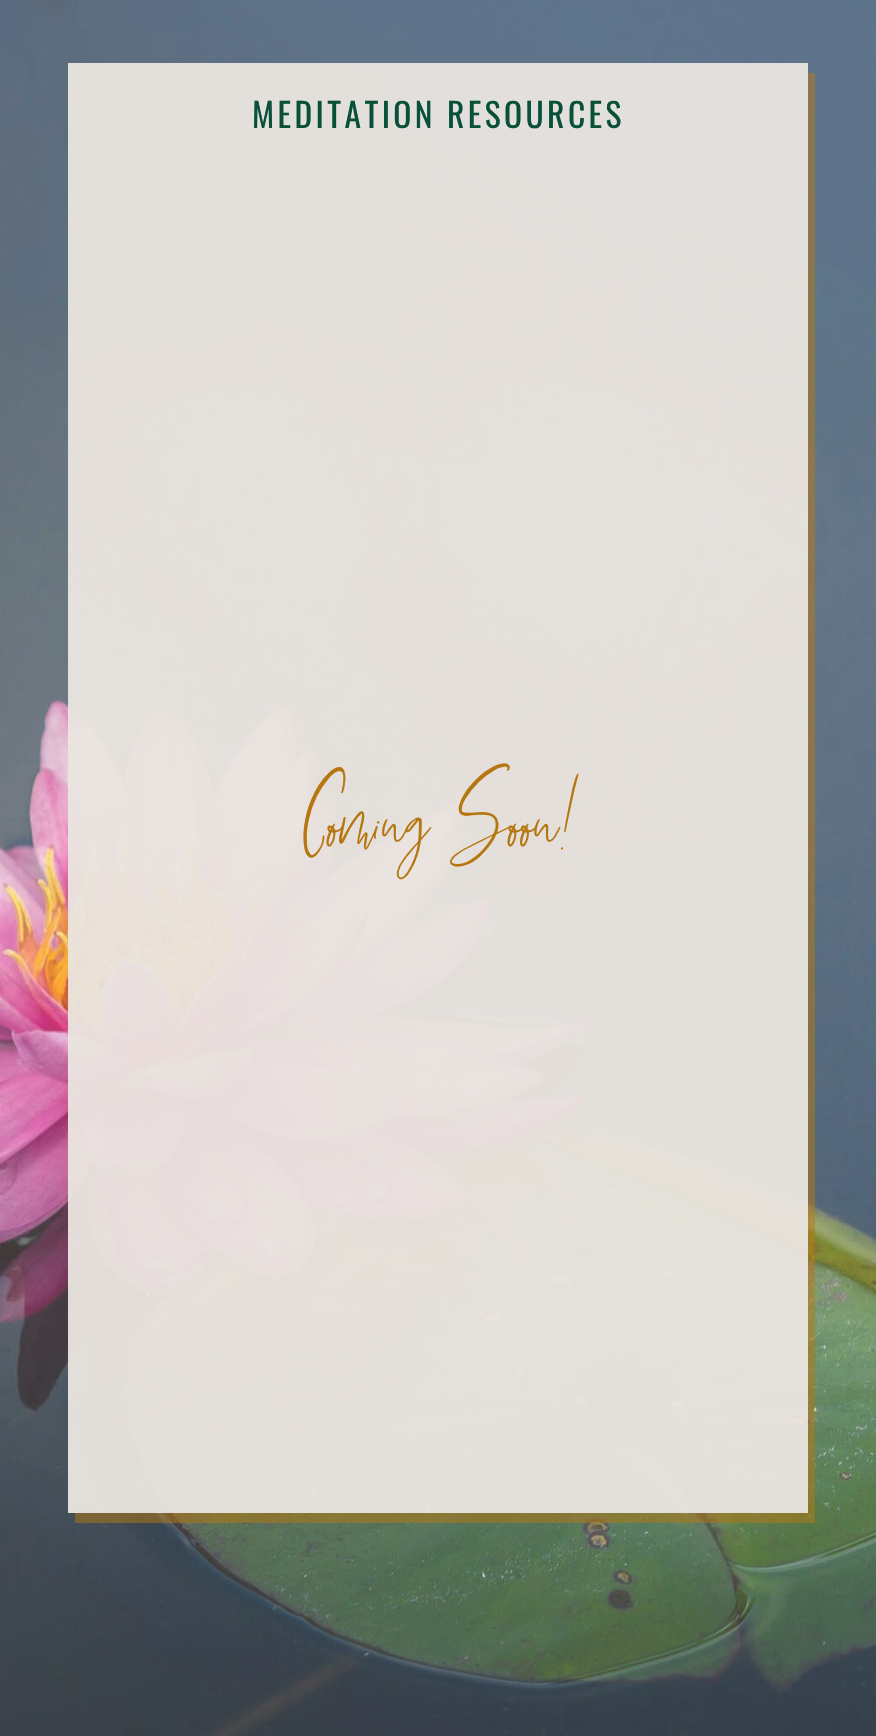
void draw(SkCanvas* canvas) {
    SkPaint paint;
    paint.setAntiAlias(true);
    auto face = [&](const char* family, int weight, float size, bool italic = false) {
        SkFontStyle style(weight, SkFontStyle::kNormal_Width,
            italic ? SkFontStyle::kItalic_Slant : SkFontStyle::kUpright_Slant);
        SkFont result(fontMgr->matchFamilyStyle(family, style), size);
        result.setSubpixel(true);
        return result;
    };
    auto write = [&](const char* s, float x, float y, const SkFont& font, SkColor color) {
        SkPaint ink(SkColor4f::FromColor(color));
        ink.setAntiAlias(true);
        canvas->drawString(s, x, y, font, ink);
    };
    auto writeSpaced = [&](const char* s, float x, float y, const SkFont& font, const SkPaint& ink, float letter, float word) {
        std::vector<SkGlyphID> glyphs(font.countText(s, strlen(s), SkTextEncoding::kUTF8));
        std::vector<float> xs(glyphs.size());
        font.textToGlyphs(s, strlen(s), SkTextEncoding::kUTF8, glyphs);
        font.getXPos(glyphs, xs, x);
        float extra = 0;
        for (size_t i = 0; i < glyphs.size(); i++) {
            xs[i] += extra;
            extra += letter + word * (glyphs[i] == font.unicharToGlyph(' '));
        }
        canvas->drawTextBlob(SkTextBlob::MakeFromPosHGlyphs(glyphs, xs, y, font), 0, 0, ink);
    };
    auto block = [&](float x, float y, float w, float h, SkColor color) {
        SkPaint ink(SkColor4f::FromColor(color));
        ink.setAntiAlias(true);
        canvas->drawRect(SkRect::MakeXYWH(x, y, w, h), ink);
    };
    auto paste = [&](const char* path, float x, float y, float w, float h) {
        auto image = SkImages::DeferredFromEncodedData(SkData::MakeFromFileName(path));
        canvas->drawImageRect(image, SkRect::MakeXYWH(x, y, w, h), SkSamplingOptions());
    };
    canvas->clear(SK_ColorWHITE);
    paste("pic1.png", 0, 0, 876, 1736);
    paint.setColor(SkColorSetARGB(128, 182, 119, 16));
    canvas->drawPath(SkPathBuilder().moveTo(75, 1513).lineTo(75, 1523).lineTo(815, 1523).lineTo(815, 73).lineTo(808, 73).lineTo(808, 1513).close().detach(), paint);
    block(68, 63, 740, 1450, SkColorSetARGB(242, 234, 229, 223));
    auto kFont1 = face("Oswald", 400, 33.5f);
    paint.setColor(SkColorSetRGB(9, 80, 58));
    writeSpaced("MEDITATION RESOURCES", 252, 128, kFont1, paint, 3.4f, 0);
    auto kFont2 = face("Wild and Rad", 400, 98.5f);
    write("Coming Soon!", 300, 839, kFont2, SkColorSetRGB(182, 119, 16));
}
